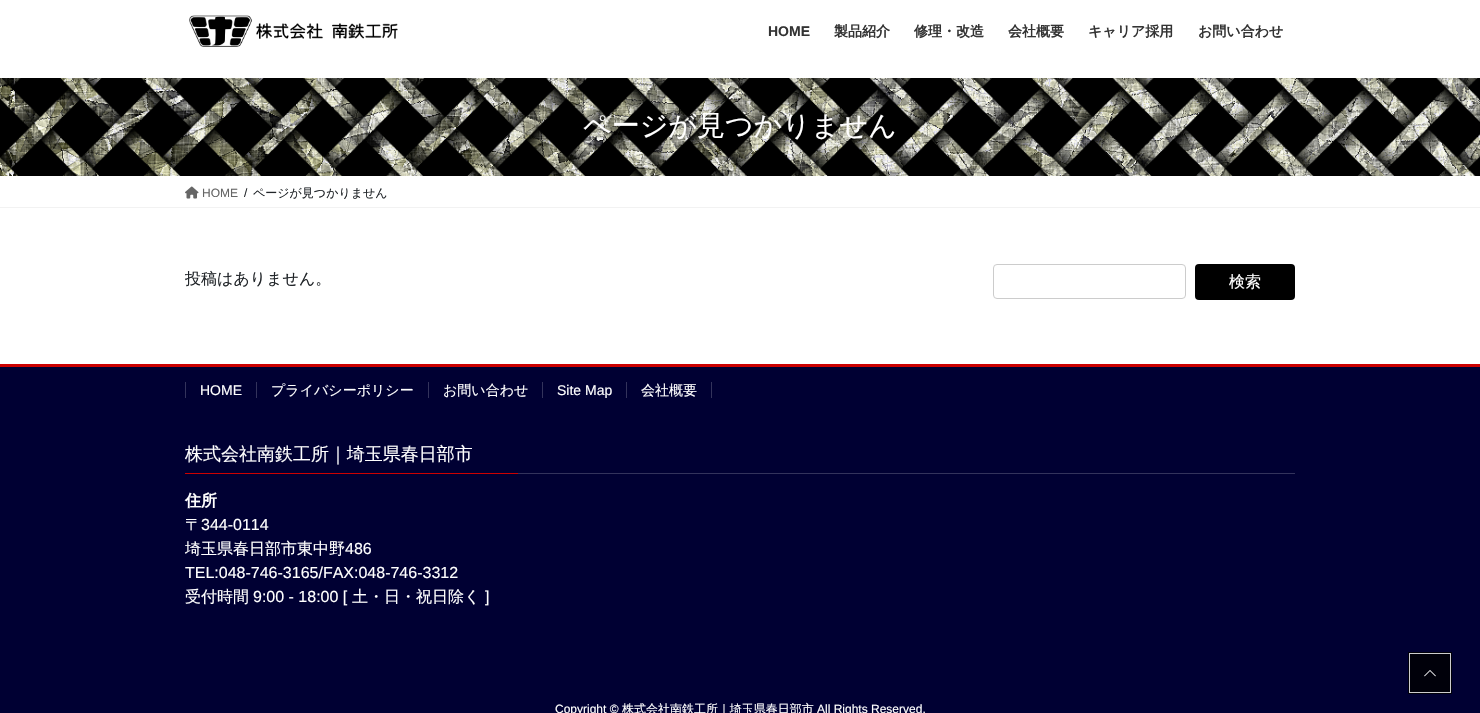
void draw(SkCanvas* canvas) {
    SkPaint paint;
    paint.setAntiAlias(true);
    auto face = [&](const char* family, int weight, float size, bool italic = false) {
        SkFontStyle style(weight, SkFontStyle::kNormal_Width,
            italic ? SkFontStyle::kItalic_Slant : SkFontStyle::kUpright_Slant);
        SkFont result(fontMgr->matchFamilyStyle(family, style), size);
        result.setSubpixel(true);
        return result;
    };
    auto write = [&](const char* s, float x, float y, const SkFont& font, SkColor color) {
        SkPaint ink(SkColor4f::FromColor(color));
        ink.setAntiAlias(true);
        canvas->drawString(s, x, y, font, ink);
    };
    auto block = [&](float x, float y, float w, float h, SkColor color) {
        SkPaint ink(SkColor4f::FromColor(color));
        ink.setAntiAlias(true);
        canvas->drawRect(SkRect::MakeXYWH(x, y, w, h), ink);
    };
    auto card = [&](float x, float y, float w, float h, float radius, SkColor color) {
        SkPaint ink(SkColor4f::FromColor(color));
        ink.setAntiAlias(true);
        canvas->drawRoundRect(SkRect::MakeXYWH(x, y, w, h), radius, radius, ink);
    };
    auto paste = [&](const char* path, float x, float y, float w, float h) {
        auto image = SkImages::DeferredFromEncodedData(SkData::MakeFromFileName(path));
        canvas->drawImageRect(image, SkRect::MakeXYWH(x, y, w, h), SkSamplingOptions());
    };
    canvas->clear(SK_ColorWHITE);
    paste("pic2.png", 0, 78, 1480, 98);
    canvas->save();
    canvas->clipRect(SkRect::MakeXYWH(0, 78, 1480, 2));
    paint.setColor(SkColorSetARGB(26, 0, 0, 0));
    paint.setMaskFilter(SkMaskFilter::MakeBlur(kNormal_SkBlurStyle, 1.5f));
    canvas->drawRect(SkRect::MakeXYWH(0, -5, 1480, 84), paint);
    paint.setMaskFilter(nullptr);
    canvas->restore();
    paste("pic1.png", 189, 15, 209, 32);
    auto kFont1 = face("Liberation Sans", 700, 14);
    write("HOME", 768, 36, kFont1, SkColorSetRGB(51, 51, 51));
    auto kFont2 = face("WenQuanYi Zen Hei", 700, 14);
    write("製品紹介", 834, 36, kFont2, SkColorSetRGB(51, 51, 51));
    write("修理・改造", 914, 36, kFont2, SkColorSetRGB(51, 51, 51));
    write("会社概要", 1008, 36, kFont2, SkColorSetRGB(51, 51, 51));
    write("キャリア採用", 1088, 36, kFont2, SkColorSetRGB(51, 51, 51));
    write("お問い合わせ", 1198, 36, kFont2, SkColorSetRGB(51, 51, 51));
    auto kFont3 = face("WenQuanYi Zen Hei", 500, 28);
    write("ページが見つかりません", 583, 135, kFont3, SK_ColorWHITE);
    block(0, 207, 1480, 1, SkColorSetRGB(242, 242, 242));
    paste("pic3.png", 185, 186, 14, 13);
    auto kFont4 = face("Liberation Sans", 400, 12);
    write("HOME", 202, 197, kFont4, SkColorSetRGB(102, 102, 102));
    write("/", 244, 197, kFont4, SkColorSetRGB(33, 37, 41));
    auto kFont5 = face("WenQuanYi Zen Hei", 500, 12);
    write("ページが見つかりません", 253, 197, kFont5, SkColorSetRGB(33, 37, 41));
    auto kFont6 = face("WenQuanYi Zen Hei", 500, 16);
    write("投稿はありません。", 185, 284, kFont6, SkColorSetRGB(33, 37, 41));
    paint.setStyle(SkPaint::kStroke_Style);
    paint.setStrokeWidth(1);
    paint.setColor(SkColorSetRGB(204, 204, 204));
    canvas->drawRoundRect(SkRect::MakeXYWH(993.5f, 264.5f, 192, 34), 3.5f, 3.5f, paint);
    card(1195, 264, 100, 36, 4, SK_ColorBLACK);
    write("検索", 1229, 287, kFont6, SK_ColorWHITE);
    block(0, 367, 1480, 346, SkColorSetRGB(0, 0, 51));
    block(0, 364, 1480, 3, SkColorSetRGB(204, 0, 0));
    auto kFont7 = face("Liberation Sans", 400, 14);
    write("HOME", 200, 395, kFont7, SK_ColorWHITE);
    block(185, 382, 1, 16, SkColorSetRGB(51, 51, 92));
    auto kFont8 = face("WenQuanYi Zen Hei", 500, 14);
    write("プライバシーポリシー", 271, 395, kFont8, SK_ColorWHITE);
    block(256, 382, 1, 16, SkColorSetRGB(51, 51, 92));
    write("お問い合わせ", 443, 395, kFont8, SK_ColorWHITE);
    block(428, 382, 1, 16, SkColorSetRGB(51, 51, 92));
    write("Site Map", 557, 395, kFont7, SK_ColorWHITE);
    block(542, 382, 1, 16, SkColorSetRGB(51, 51, 92));
    write("会社概要", 641, 395, kFont8, SK_ColorWHITE);
    block(711, 382, 1, 16, SkColorSetRGB(51, 51, 92));
    block(626, 382, 1, 16, SkColorSetRGB(51, 51, 92));
    block(518, 473, 777, 1, SkColorSetRGB(51, 51, 92));
    auto kFont9 = face("WenQuanYi Zen Hei", 500, 18);
    write("株式会社南鉄工所｜埼玉県春日部市", 185, 460, kFont9, SK_ColorWHITE);
    block(185, 473, 333, 1, SkColorSetRGB(204, 0, 0));
    auto kFont10 = face("WenQuanYi Zen Hei", 700, 16);
    write("住所", 185, 506, kFont10, SK_ColorWHITE);
    write("〒", 185, 530, kFont6, SK_ColorWHITE);
    auto kFont11 = face("Liberation Sans", 400, 16);
    write("344-0114", 201, 530, kFont11, SK_ColorWHITE);
    write("埼玉県春日部市東中野", 185, 554, kFont6, SK_ColorWHITE);
    write("486", 345, 554, kFont11, SK_ColorWHITE);
    write("TEL:048-746-3165/FAX:048-746-3312", 185, 578, kFont11, SK_ColorWHITE);
    write("受付時間", 185, 602, kFont6, SK_ColorWHITE);
    write("9:00 - 18:00 [", 253, 602, kFont11, SK_ColorWHITE);
    write("土・日・祝日除く", 352, 602, kFont6, SK_ColorWHITE);
    write("]", 485, 602, kFont11, SK_ColorWHITE);
    write("Copyright ©", 555, 713, kFont4, SK_ColorWHITE);
    write("株式会社南鉄工所｜埼玉県春日部市", 622, 713, kFont5, SK_ColorWHITE);
    write("All Rights Reserved.", 817, 713, kFont4, SK_ColorWHITE);
    paint.setStrokeWidth(2);
    paint.setColor(SkColorSetRGB(0, 0, 10));
    canvas->drawRect(SkRect::MakeXYWH(1409, 653, 42, 40), paint);
    paint.setStrokeWidth(1);
    paint.setColor(SkColorSetRGB(204, 204, 206));
    canvas->drawRect(SkRect::MakeXYWH(1409.5f, 653.5f, 41, 39), paint);
    block(1410, 654, 40, 38, SkColorSetRGB(0, 0, 10));
    paste("pic4.png", 1424, 670, 12, 7);
}
